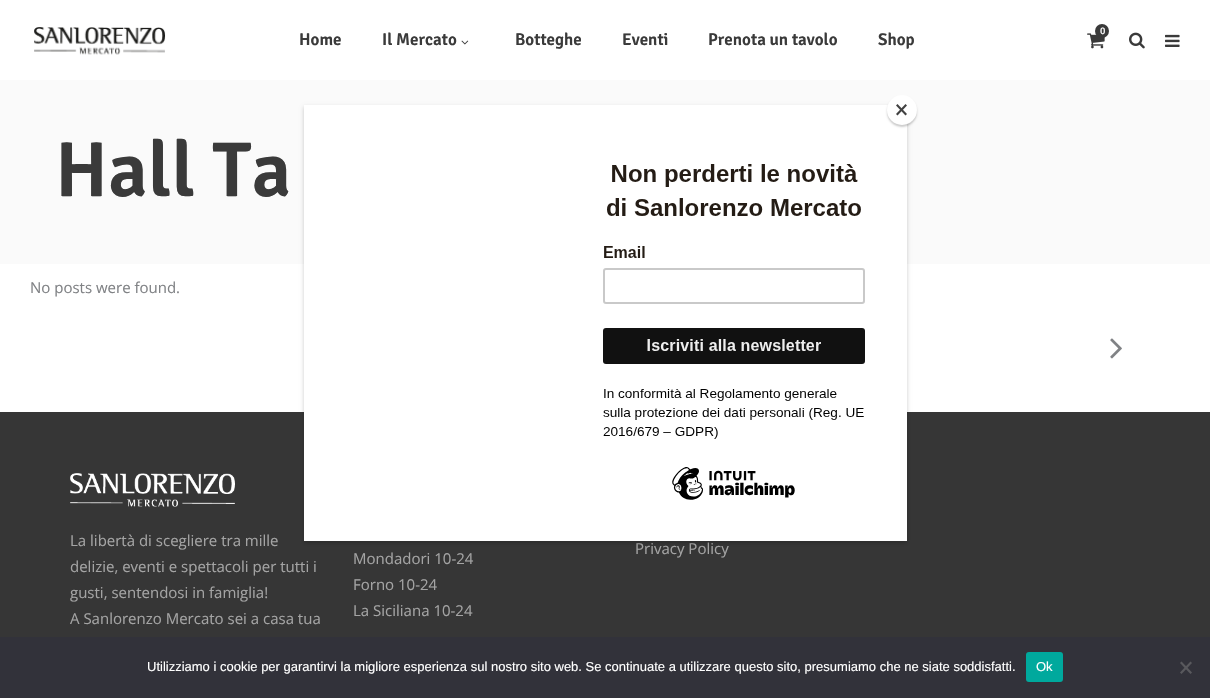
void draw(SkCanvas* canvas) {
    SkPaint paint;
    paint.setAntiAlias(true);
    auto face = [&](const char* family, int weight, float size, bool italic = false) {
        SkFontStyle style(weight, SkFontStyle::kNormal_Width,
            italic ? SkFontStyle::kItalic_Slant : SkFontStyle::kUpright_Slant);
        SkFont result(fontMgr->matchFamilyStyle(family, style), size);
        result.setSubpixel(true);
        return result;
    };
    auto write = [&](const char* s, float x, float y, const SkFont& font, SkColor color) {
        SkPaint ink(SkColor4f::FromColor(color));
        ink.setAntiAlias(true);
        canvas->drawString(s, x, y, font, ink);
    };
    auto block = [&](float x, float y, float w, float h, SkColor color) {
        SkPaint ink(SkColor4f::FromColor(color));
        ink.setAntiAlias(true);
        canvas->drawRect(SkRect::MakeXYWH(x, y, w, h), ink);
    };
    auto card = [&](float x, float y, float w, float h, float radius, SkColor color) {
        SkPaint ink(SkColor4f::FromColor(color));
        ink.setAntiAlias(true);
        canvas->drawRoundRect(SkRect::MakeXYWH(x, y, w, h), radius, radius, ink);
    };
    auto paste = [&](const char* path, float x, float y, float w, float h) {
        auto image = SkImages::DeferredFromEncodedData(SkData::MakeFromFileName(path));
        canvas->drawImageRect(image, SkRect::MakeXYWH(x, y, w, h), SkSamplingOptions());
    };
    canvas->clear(SK_ColorWHITE);
    paste("pic1.png", 34, 27, 132, 28);
    paste("pic2.png", 1087, 33, 18, 16);
    paint.setColor(SkColorSetRGB(58, 58, 58));
    canvas->drawCircle(1102, 31, 7, paint);
    auto kFont1 = face("Signika", 400, 10);
    write("0", 1100, 34, kFont1, SK_ColorWHITE);
    paste("pic3.png", 1129, 32, 16, 17);
    paste("pic4.png", 1165, 34, 15, 13);
    auto kFont2 = face("Signika", 600, 17);
    write("Home", 299, 45, kFont2, SkColorSetRGB(58, 58, 58));
    write("Il Mercato", 382, 45, kFont2, SkColorSetRGB(58, 58, 58));
    paste("pic5.png", 461, 40, 8, 5);
    write("Botteghe", 515, 45, kFont2, SkColorSetRGB(58, 58, 58));
    write("Eventi", 622, 45, kFont2, SkColorSetRGB(58, 58, 58));
    write("Prenota un tavolo", 708, 45, kFont2, SkColorSetRGB(58, 58, 58));
    write("Shop", 878, 45, kFont2, SkColorSetRGB(58, 58, 58));
    block(0, 80, 1210, 184, SkColorSetRGB(250, 250, 250));
    auto kFont3 = face("Signika", 600, 78);
    write("Hall Ta", 55, 196, kFont3, SkColorSetRGB(58, 58, 58));
    auto kFont4 = face("Open Sans", 400, 15);
    write("No posts were found.", 30, 293, kFont4, SkColorSetRGB(128, 130, 133));
    paste("pic6.png", 1110, 338, 12, 21);
    block(0, 412, 1210, 225, SkColorSetRGB(54, 54, 54));
    paste("pic7.png", 70, 473, 165, 34);
    write("La libertà di scegliere tra mille", 70, 546, kFont4, SkColorSetRGB(164, 164, 164));
    write("delizie, eventi e spettacoli per tutti i", 70, 572, kFont4, SkColorSetRGB(164, 164, 164));
    write("gusti, sentendosi in famiglia!", 70, 598, kFont4, SkColorSetRGB(164, 164, 164));
    write("A Sanlorenzo Mercato sei a casa tua", 70, 624, kFont4, SkColorSetRGB(164, 164, 164));
    write("Privacy Policy", 635, 554, kFont4, SkColorSetRGB(164, 164, 164));
    write("Mondadori 10-24", 353, 564, kFont4, SkColorSetRGB(164, 164, 164));
    write("Forno 10-24", 353, 590, kFont4, SkColorSetRGB(164, 164, 164));
    write("La Siciliana 10-24", 353, 616, kFont4, SkColorSetRGB(164, 164, 164));
    paint.setColor(SkColorSetARGB(51, 0, 0, 0));
    paint.setMaskFilter(SkMaskFilter::MakeBlur(kNormal_SkBlurStyle, 2));
    canvas->drawRect(SkRect::MakeXYWH(304, 107, 603, 436), paint);
    paint.setMaskFilter(nullptr);
    paste("pic8.png", 304, 105, 603, 436);
    paint.setMaskFilter(SkMaskFilter::MakeBlur(kNormal_SkBlurStyle, 1));
    canvas->drawRoundRect(SkRect::MakeXYWH(887, 97, 30, 30), 15, 15, paint);
    paint.setMaskFilter(nullptr);
    paint.setColor(SK_ColorWHITE);
    canvas->drawCircle(902, 110, 15, paint);
    paint.setColor(SkColorSetRGB(65, 65, 65));
    canvas->drawPath(SkPathBuilder().moveTo(905.5f, 104).lineTo(907, 105.5f).lineTo(897.5f, 115.5f).lineTo(896, 114).close().detach(), paint);
    canvas->drawPath(SkPathBuilder().moveTo(896, 105.5f).lineTo(897.5f, 104).lineTo(907, 114).lineTo(905.5f, 115.5f).close().detach(), paint);
    block(0, 637, 1210, 61, SkColorSetRGB(50, 50, 58));
    auto kFont5 = face("Liberation Sans", 400, 13);
    write("Utilizziamo i cookie per garantirvi la migliore esperienza sul nostro sito web. Se continuate a utilizzare questo sito, presumiamo che ne siate soddisfatti.", 147, 671, kFont5, SK_ColorWHITE);
    card(1026, 652, 37, 30, 3, SkColorSetRGB(0, 169, 157));
    write("Ok", 1036, 671, kFont5, SK_ColorWHITE);
    paint.setColor(SkColorSetRGB(89, 89, 93));
    canvas->drawPath(SkPathBuilder().moveTo(1190.5f, 661.5f).lineTo(1192, 663).lineTo(1181.5f, 674).lineTo(1180, 672.5f).close().detach(), paint);
    canvas->drawPath(SkPathBuilder().moveTo(1180, 663).lineTo(1181.5f, 661.5f).lineTo(1192, 672.5f).lineTo(1190.5f, 674).close().detach(), paint);
}
